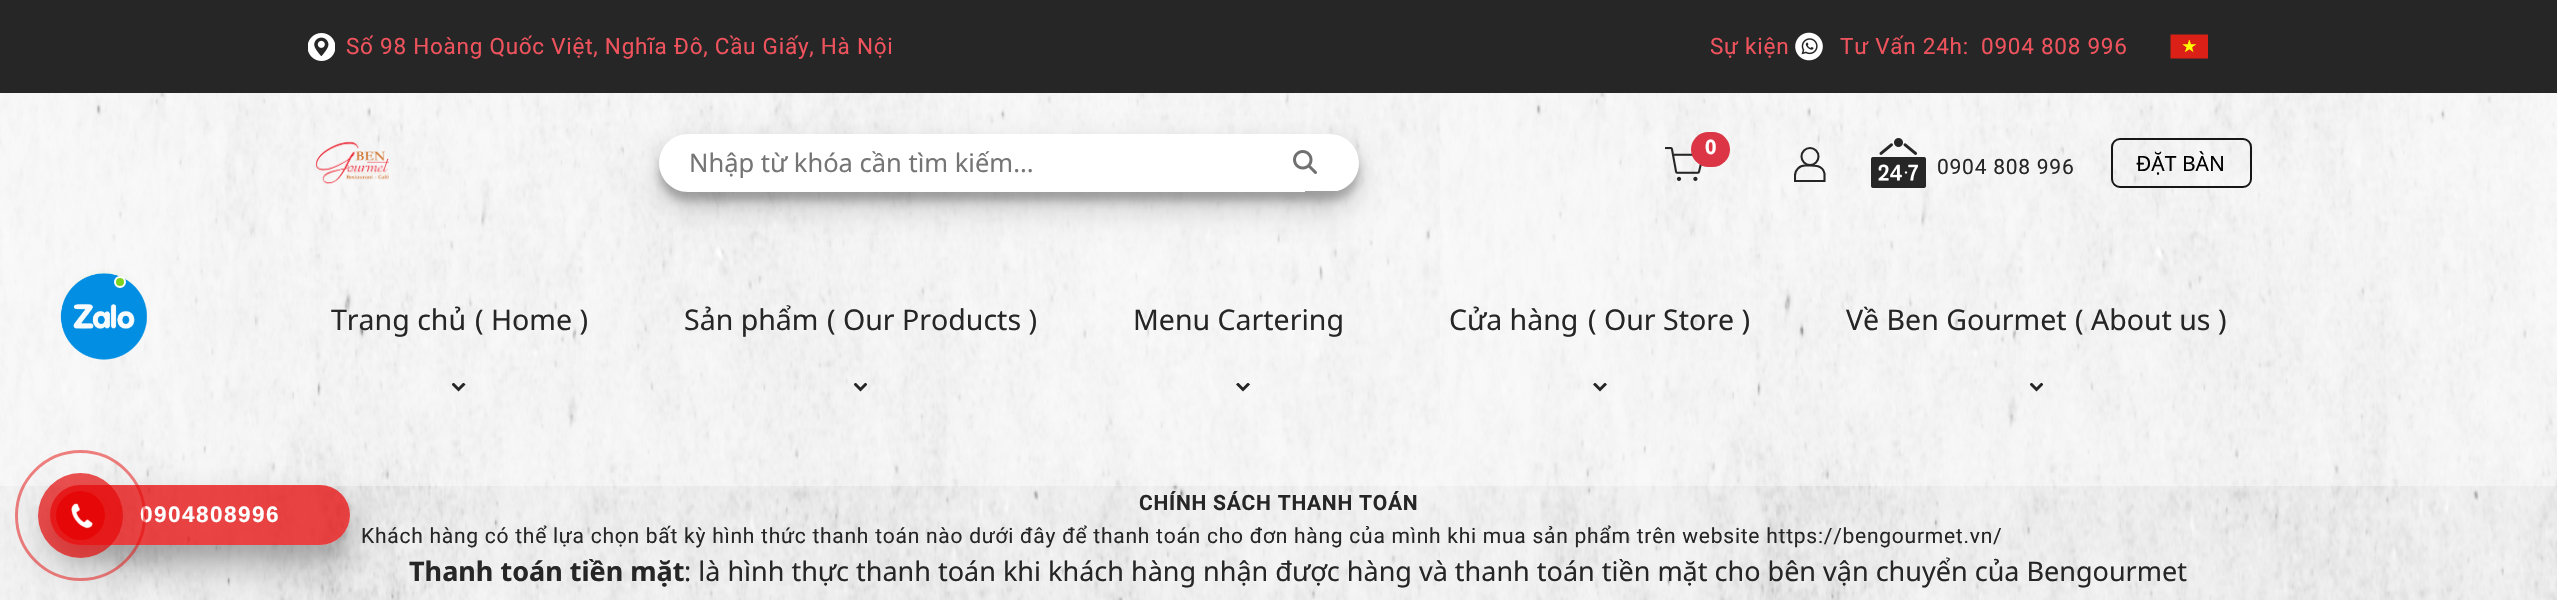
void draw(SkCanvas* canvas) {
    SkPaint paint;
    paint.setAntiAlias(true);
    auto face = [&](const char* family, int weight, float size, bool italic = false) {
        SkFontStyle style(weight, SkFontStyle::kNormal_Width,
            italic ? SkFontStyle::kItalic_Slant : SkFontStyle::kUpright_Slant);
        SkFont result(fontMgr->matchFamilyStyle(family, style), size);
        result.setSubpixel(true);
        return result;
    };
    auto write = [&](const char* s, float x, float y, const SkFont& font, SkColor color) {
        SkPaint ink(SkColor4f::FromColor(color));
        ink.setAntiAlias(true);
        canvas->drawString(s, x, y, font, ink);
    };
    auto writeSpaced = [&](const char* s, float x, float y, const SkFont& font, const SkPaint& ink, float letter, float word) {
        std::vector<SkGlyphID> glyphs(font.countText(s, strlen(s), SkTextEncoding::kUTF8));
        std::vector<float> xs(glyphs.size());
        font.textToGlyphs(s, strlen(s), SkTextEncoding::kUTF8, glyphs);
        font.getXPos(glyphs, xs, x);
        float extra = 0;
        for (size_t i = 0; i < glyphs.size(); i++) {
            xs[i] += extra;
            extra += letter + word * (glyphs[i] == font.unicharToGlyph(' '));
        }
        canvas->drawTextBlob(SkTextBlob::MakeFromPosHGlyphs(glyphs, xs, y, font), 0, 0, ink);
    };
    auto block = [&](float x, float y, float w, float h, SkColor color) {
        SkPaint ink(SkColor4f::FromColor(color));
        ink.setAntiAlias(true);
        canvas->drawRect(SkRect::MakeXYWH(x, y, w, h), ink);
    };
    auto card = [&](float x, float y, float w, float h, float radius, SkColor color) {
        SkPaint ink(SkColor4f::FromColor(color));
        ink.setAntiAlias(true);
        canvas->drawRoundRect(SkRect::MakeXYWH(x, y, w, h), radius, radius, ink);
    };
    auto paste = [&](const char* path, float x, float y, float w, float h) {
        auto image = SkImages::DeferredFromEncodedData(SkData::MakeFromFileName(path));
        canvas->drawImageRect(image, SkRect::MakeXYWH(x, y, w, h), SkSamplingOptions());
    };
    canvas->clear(SK_ColorWHITE);
    paste("pic1.png", 0, 93, 2557, 507);
    block(0, 93, 2557, 393, SkColorSetARGB(102, 255, 255, 255));
    block(0, 0, 2557, 93, SkColorSetRGB(38, 38, 38));
    paste("pic2.png", 308, 33, 27, 28);
    auto kFont1 = face("Roboto", 400, 22.5f);
    paint.setColor(SkColorSetRGB(238, 83, 93));
    writeSpaced("Số 98 Hoàng Quốc Việt, Nghĩa Đô, Cầu Giấy, Hà Nội", 346, 54, kFont1, paint, 0.75f, 0);
    writeSpaced("Sự kiện", 1710, 54, kFont1, paint, 0.75f, 0);
    paste("pic3.png", 1795, 32, 28, 29);
    writeSpaced("Tư Vấn 24h:", 1840, 54, kFont1, paint, 0.75f, 0);
    writeSpaced("0904 808 996", 1981, 54, kFont1, paint, 0.75f, 0);
    paste("pic4.png", 2170, 34, 38, 25);
    paste("pic5.png", 315, 141, 74, 43);
    paint.setColor(SkColorSetARGB(59, 0, 0, 0));
    paint.setMaskFilter(SkMaskFilter::MakeBlur(kNormal_SkBlurStyle, 4.5f));
    canvas->drawRoundRect(SkRect::MakeXYWH(659, 143, 700, 58), 29, 29, paint);
    paint.setMaskFilter(nullptr);
    paint.setColor(SkColorSetARGB(48, 0, 0, 0));
    paint.setMaskFilter(SkMaskFilter::MakeBlur(kNormal_SkBlurStyle, 15));
    canvas->drawRoundRect(SkRect::MakeXYWH(659, 149, 700, 58), 29, 29, paint);
    paint.setMaskFilter(nullptr);
    paint.setColor(SK_ColorWHITE);
    canvas->drawPath(SkPathBuilder().moveTo(688, 134).lineTo(1305, 134).lineTo(1305, 192).lineTo(688, 192).cubicTo(672, 192, 659, 179, 659, 163).cubicTo(659, 147, 672, 134, 688, 134).close().detach(), paint);
    auto kFont2 = face("Noto Sans", 400, 25.5f);
    write("Nhập từ khóa cần tìm kiếm...", 689, 172, kFont2, SkColorSetRGB(117, 117, 117));
    canvas->save();
    canvas->clipPath(SkPathBuilder().moveTo(688, 134).lineTo(1330, 134).cubicTo(1346, 134, 1359, 147, 1359, 163).cubicTo(1359, 179, 1346, 192, 1330, 192).lineTo(688, 192).cubicTo(672, 192, 659, 179, 659, 163).cubicTo(659, 147, 672, 134, 688, 134).close().detach(), true);
    canvas->drawPath(SkPathBuilder().moveTo(1305, 134).lineTo(1330, 134).cubicTo(1346, 134, 1359, 147, 1359, 163).lineTo(1359, 167).cubicTo(1359, 180.5f, 1348.5f, 191, 1335, 191).lineTo(1305, 191).close().detach(), paint);
    canvas->restore();
    paste("pic6.png", 1293, 150, 24, 24);
    paste("pic7.png", 1665, 147, 37, 34);
    card(1691, 132, 39, 35, 17.5f, SkColorSetRGB(220, 53, 69));
    auto kFont3 = face("Noto Sans", 700, 20);
    write("0", 1705, 154, kFont3, SK_ColorWHITE);
    paint.setStyle(SkPaint::kStroke_Style);
    paint.setStrokeWidth(2.1f);
    paint.setColor(SkColorSetRGB(38, 38, 38));
    canvas->drawCircle(1810, 156.5f, 8.5f, paint);
    canvas->save();
    canvas->clipRect(SkRect::MakeXYWH(1794, 147, 32, 35));
    canvas->drawPath(SkPathBuilder().moveTo(1805, 165.5f).cubicTo(1812.5f, 165.5f, 1822.5f, 164, 1824.5f, 173.5f).lineTo(1824.5f, 181).lineTo(1795, 181).lineTo(1795, 175.5f).cubicTo(1795, 170, 1799.5f, 165.5f, 1805, 165.5f).close().detach(), paint);
    canvas->restore();
    paste("pic8.png", 1871, 138, 55, 50);
    auto kFont4 = face("Roboto", 400, 21);
    paint.setStyle(SkPaint::kFill_Style);
    writeSpaced("0904 808 996", 1937, 174, kFont4, paint, 0.75f, 0);
    paint.setStyle(SkPaint::kStroke_Style);
    paint.setStrokeWidth(2);
    paint.setColor(SkColorSetRGB(22, 22, 22));
    canvas->drawRoundRect(SkRect::MakeXYWH(2112, 139, 139, 48), 8, 8, paint);
    auto kFont5 = face("Noto Sans", 400, 21);
    write("ĐẶT BÀN", 2136, 171, kFont5, SK_ColorBLACK);
    auto kFont6 = face("Noto Sans", 400, 28.5f);
    write("Trang chủ", 331, 330, kFont6, SkColorSetRGB(38, 38, 38));
    write("( Home )", 475, 330, kFont6, SkColorSetRGB(38, 38, 38));
    canvas->save();
    canvas->clipRect(SkRect::MakeXYWH(452, 383, 15, 9));
    paint.setStrokeWidth(3);
    paint.setColor(SkColorSetRGB(38, 38, 38));
    canvas->drawPath(SkPathBuilder().moveTo(452.5f, 383.5f).lineTo(458.5f, 389.5f).lineTo(464.5f, 383.5f).detach(), paint);
    canvas->restore();
    write("Sản phẩm", 684, 330, kFont6, SkColorSetRGB(38, 38, 38));
    write("( Our Products )", 827, 330, kFont6, SkColorSetRGB(38, 38, 38));
    canvas->save();
    canvas->clipRect(SkRect::MakeXYWH(854, 383, 13, 9));
    canvas->drawPath(SkPathBuilder().moveTo(854.5f, 383.5f).lineTo(860.5f, 389.5f).lineTo(866.5f, 383.5f).detach(), paint);
    canvas->restore();
    write("Menu Cartering", 1133, 330, kFont6, SkColorSetRGB(38, 38, 38));
    canvas->save();
    canvas->clipRect(SkRect::MakeXYWH(1236, 383, 15, 9));
    canvas->drawPath(SkPathBuilder().moveTo(1237, 383.5f).lineTo(1243, 389.5f).lineTo(1249, 383.5f).detach(), paint);
    canvas->restore();
    write("Cửa hàng", 1449, 330, kFont6, SkColorSetRGB(38, 38, 38));
    write("( Our Store )", 1588, 330, kFont6, SkColorSetRGB(38, 38, 38));
    canvas->save();
    canvas->clipRect(SkRect::MakeXYWH(1593, 383, 14, 9));
    canvas->drawPath(SkPathBuilder().moveTo(1594, 383.5f).lineTo(1600, 389.5f).lineTo(1606, 383.5f).detach(), paint);
    canvas->restore();
    write("Về Ben Gourmet", 1846, 330, kFont6, SkColorSetRGB(38, 38, 38));
    write("( About us )", 2075, 330, kFont6, SkColorSetRGB(38, 38, 38));
    canvas->save();
    canvas->clipRect(SkRect::MakeXYWH(2030, 383, 13, 9));
    canvas->drawPath(SkPathBuilder().moveTo(2030.5f, 383.5f).lineTo(2036.5f, 389.5f).lineTo(2042.5f, 383.5f).detach(), paint);
    canvas->restore();
    paint.setStyle(SkPaint::kFill_Style);
    paint.setColor(SkColorSetRGB(126, 211, 33));
    paint.setMaskFilter(SkMaskFilter::MakeBlur(kNormal_SkBlurStyle, 6));
    canvas->drawRoundRect(SkRect::MakeXYWH(74, 281, 60, 60), 30, 30, paint);
    paint.setMaskFilter(nullptr);
    paste("pic9.png", 60, 273, 87, 87);
    canvas->drawCircle(120, 282, 5, paint);
    paint.setStyle(SkPaint::kStroke_Style);
    paint.setStrokeWidth(2);
    paint.setColor(SK_ColorWHITE);
    canvas->drawCircle(120, 282, 5, paint);
    canvas->save();
    canvas->clipPath(SkPathBuilder(SkPathFillType::kEvenOdd).moveTo(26, 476).lineTo(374, 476).lineTo(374, 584).lineTo(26, 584).close().moveTo(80, 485).lineTo(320, 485).cubicTo(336.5f, 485, 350, 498.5f, 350, 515).cubicTo(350, 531.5f, 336.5f, 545, 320, 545).lineTo(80, 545).cubicTo(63.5f, 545, 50, 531.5f, 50, 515).cubicTo(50, 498.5f, 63.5f, 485, 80, 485).close().detach(), true);
    paint.setStyle(SkPaint::kFill_Style);
    paint.setColor(SkColorSetARGB(26, 0, 0, 0));
    paint.setMaskFilter(SkMaskFilter::MakeBlur(kNormal_SkBlurStyle, 7.5f));
    canvas->drawRoundRect(SkRect::MakeXYWH(50, 500, 300, 60), 30, 30, paint);
    paint.setMaskFilter(nullptr);
    canvas->restore();
    canvas->save();
    canvas->clipPath(SkPathBuilder(SkPathFillType::kEvenOdd).moveTo(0, 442).lineTo(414, 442).lineTo(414, 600).lineTo(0, 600).close().moveTo(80, 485).lineTo(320, 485).cubicTo(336.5f, 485, 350, 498.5f, 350, 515).cubicTo(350, 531.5f, 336.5f, 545, 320, 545).lineTo(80, 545).cubicTo(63.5f, 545, 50, 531.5f, 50, 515).cubicTo(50, 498.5f, 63.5f, 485, 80, 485).close().detach(), true);
    paint.setColor(SkColorSetARGB(64, 0, 0, 0));
    paint.setMaskFilter(SkMaskFilter::MakeBlur(kNormal_SkBlurStyle, 21));
    canvas->drawRoundRect(SkRect::MakeXYWH(50, 506, 300, 60), 30, 30, paint);
    paint.setMaskFilter(nullptr);
    canvas->restore();
    card(50, 485, 300, 60, 30, SkColorSetARGB(191, 230, 8, 8));
    auto kFont7 = face("Liberation Sans", 700, 22.5f);
    paint.setColor(SK_ColorWHITE);
    writeSpaced("0904808996", 140, 522, kFont7, paint, 1.5f, 0);
    paint.setStyle(SkPaint::kStroke_Style);
    paint.setStrokeWidth(3);
    paint.setColor(SkColorSetARGB(128, 230, 8, 8));
    canvas->drawCircle(80.5f, 515.5f, 64, paint);
    paint.setStyle(SkPaint::kFill_Style);
    paint.setColor(SkColorSetARGB(179, 230, 8, 8));
    canvas->drawCircle(80.5f, 515.5f, 42.5f, paint);
    paint.setColor(SkColorSetRGB(230, 8, 8));
    canvas->drawCircle(80.5f, 515.5f, 24.5f, paint);
    paste("pic10.png", 71, 503, 22, 26);
    auto kFont8 = face("Roboto", 700, 21);
    paint.setColor(SkColorSetRGB(38, 38, 38));
    writeSpaced("CHÍNH SÁCH THANH TOÁN", 1139, 510, kFont8, paint, 0.75f, 0);
    writeSpaced("Khách hàng có thể lựa chọn bất kỳ hình thức thanh toán nào dưới đây để thanh toán cho đơn hàng của mình khi mua sản phẩm trên website https://bengourmet.vn/", 361, 543, kFont4, paint, 0.75f, 0);
    auto kFont9 = face("Noto Sans", 700, 27);
    write("Thanh toán tiền mặt", 409, 581, kFont9, SkColorSetRGB(38, 38, 38));
    auto kFont10 = face("Noto Sans", 400, 27);
    write(": là hình thực thanh toán khi khách hàng nhận được hàng và thanh toán tiền mặt cho bên vận chuyển của Bengourmet", 684, 581, kFont10, SkColorSetRGB(38, 38, 38));
}
